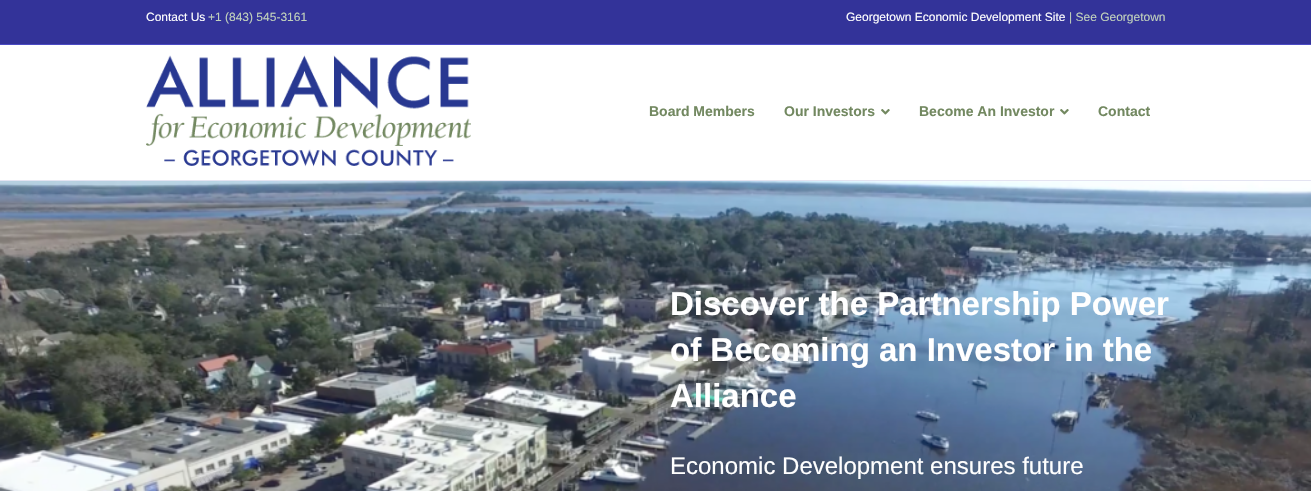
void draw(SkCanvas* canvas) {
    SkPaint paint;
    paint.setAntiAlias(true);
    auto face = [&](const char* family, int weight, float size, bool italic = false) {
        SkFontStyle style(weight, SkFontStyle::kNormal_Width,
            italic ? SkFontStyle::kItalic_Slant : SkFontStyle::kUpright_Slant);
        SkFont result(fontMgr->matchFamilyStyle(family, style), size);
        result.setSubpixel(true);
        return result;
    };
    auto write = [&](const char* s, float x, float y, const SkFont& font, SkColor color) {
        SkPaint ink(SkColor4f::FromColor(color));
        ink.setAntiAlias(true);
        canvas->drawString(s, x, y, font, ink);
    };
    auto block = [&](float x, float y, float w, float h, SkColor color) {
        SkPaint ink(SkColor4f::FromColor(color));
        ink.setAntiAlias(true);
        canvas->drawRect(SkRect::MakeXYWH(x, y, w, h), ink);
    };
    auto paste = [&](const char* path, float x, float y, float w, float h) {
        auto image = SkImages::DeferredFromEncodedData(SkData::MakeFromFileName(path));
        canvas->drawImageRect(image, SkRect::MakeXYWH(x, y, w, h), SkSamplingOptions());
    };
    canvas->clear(SK_ColorWHITE);
    block(0, 0, 1311, 44, SkColorSetRGB(51, 51, 153));
    block(0, 44, 1311, 1, SkColorSetRGB(75, 75, 195));
    auto kFont1 = face("Liberation Sans", 400, 12);
    write("Contact Us", 146, 21, kFont1, SK_ColorWHITE);
    write("+1 (843) 545-3161", 208, 21, kFont1, SkColorSetRGB(193, 209, 188));
    write("Georgetown Economic Development Site", 846, 21, kFont1, SK_ColorWHITE);
    write("| See Georgetown", 1069, 21, kFont1, SkColorSetRGB(193, 209, 188));
    block(0, 180, 1311, 1, SkColorSetRGB(228, 228, 242));
    paste("pic1.png", 146, 55, 325, 112);
    auto kFont2 = face("Liberation Sans", 700, 14);
    write("Board Members", 649, 116, kFont2, SkColorSetRGB(114, 136, 96));
    write("Our Investors", 784, 116, kFont2, SkColorSetRGB(114, 136, 96));
    paste("pic2.png", 881, 109, 9, 6);
    write("Become An Investor", 919, 116, kFont2, SkColorSetRGB(114, 136, 96));
    paste("pic2.png", 1060, 109, 9, 6);
    write("Contact", 1098, 116, kFont2, SkColorSetRGB(114, 136, 96));
    paste("pic3.png", 0, 181, 1311, 310);
    auto kFont3 = face("Liberation Sans", 700, 33);
    write("Discover the Partnership Power", 670, 315, kFont3, SK_ColorWHITE);
    write("of Becoming an Investor in the", 670, 361, kFont3, SK_ColorWHITE);
    write("Alliance", 670, 407, kFont3, SK_ColorWHITE);
    auto kFont4 = face("Liberation Sans", 400, 24);
    write("Economic Development ensures future", 670, 474, kFont4, SK_ColorWHITE);
}
